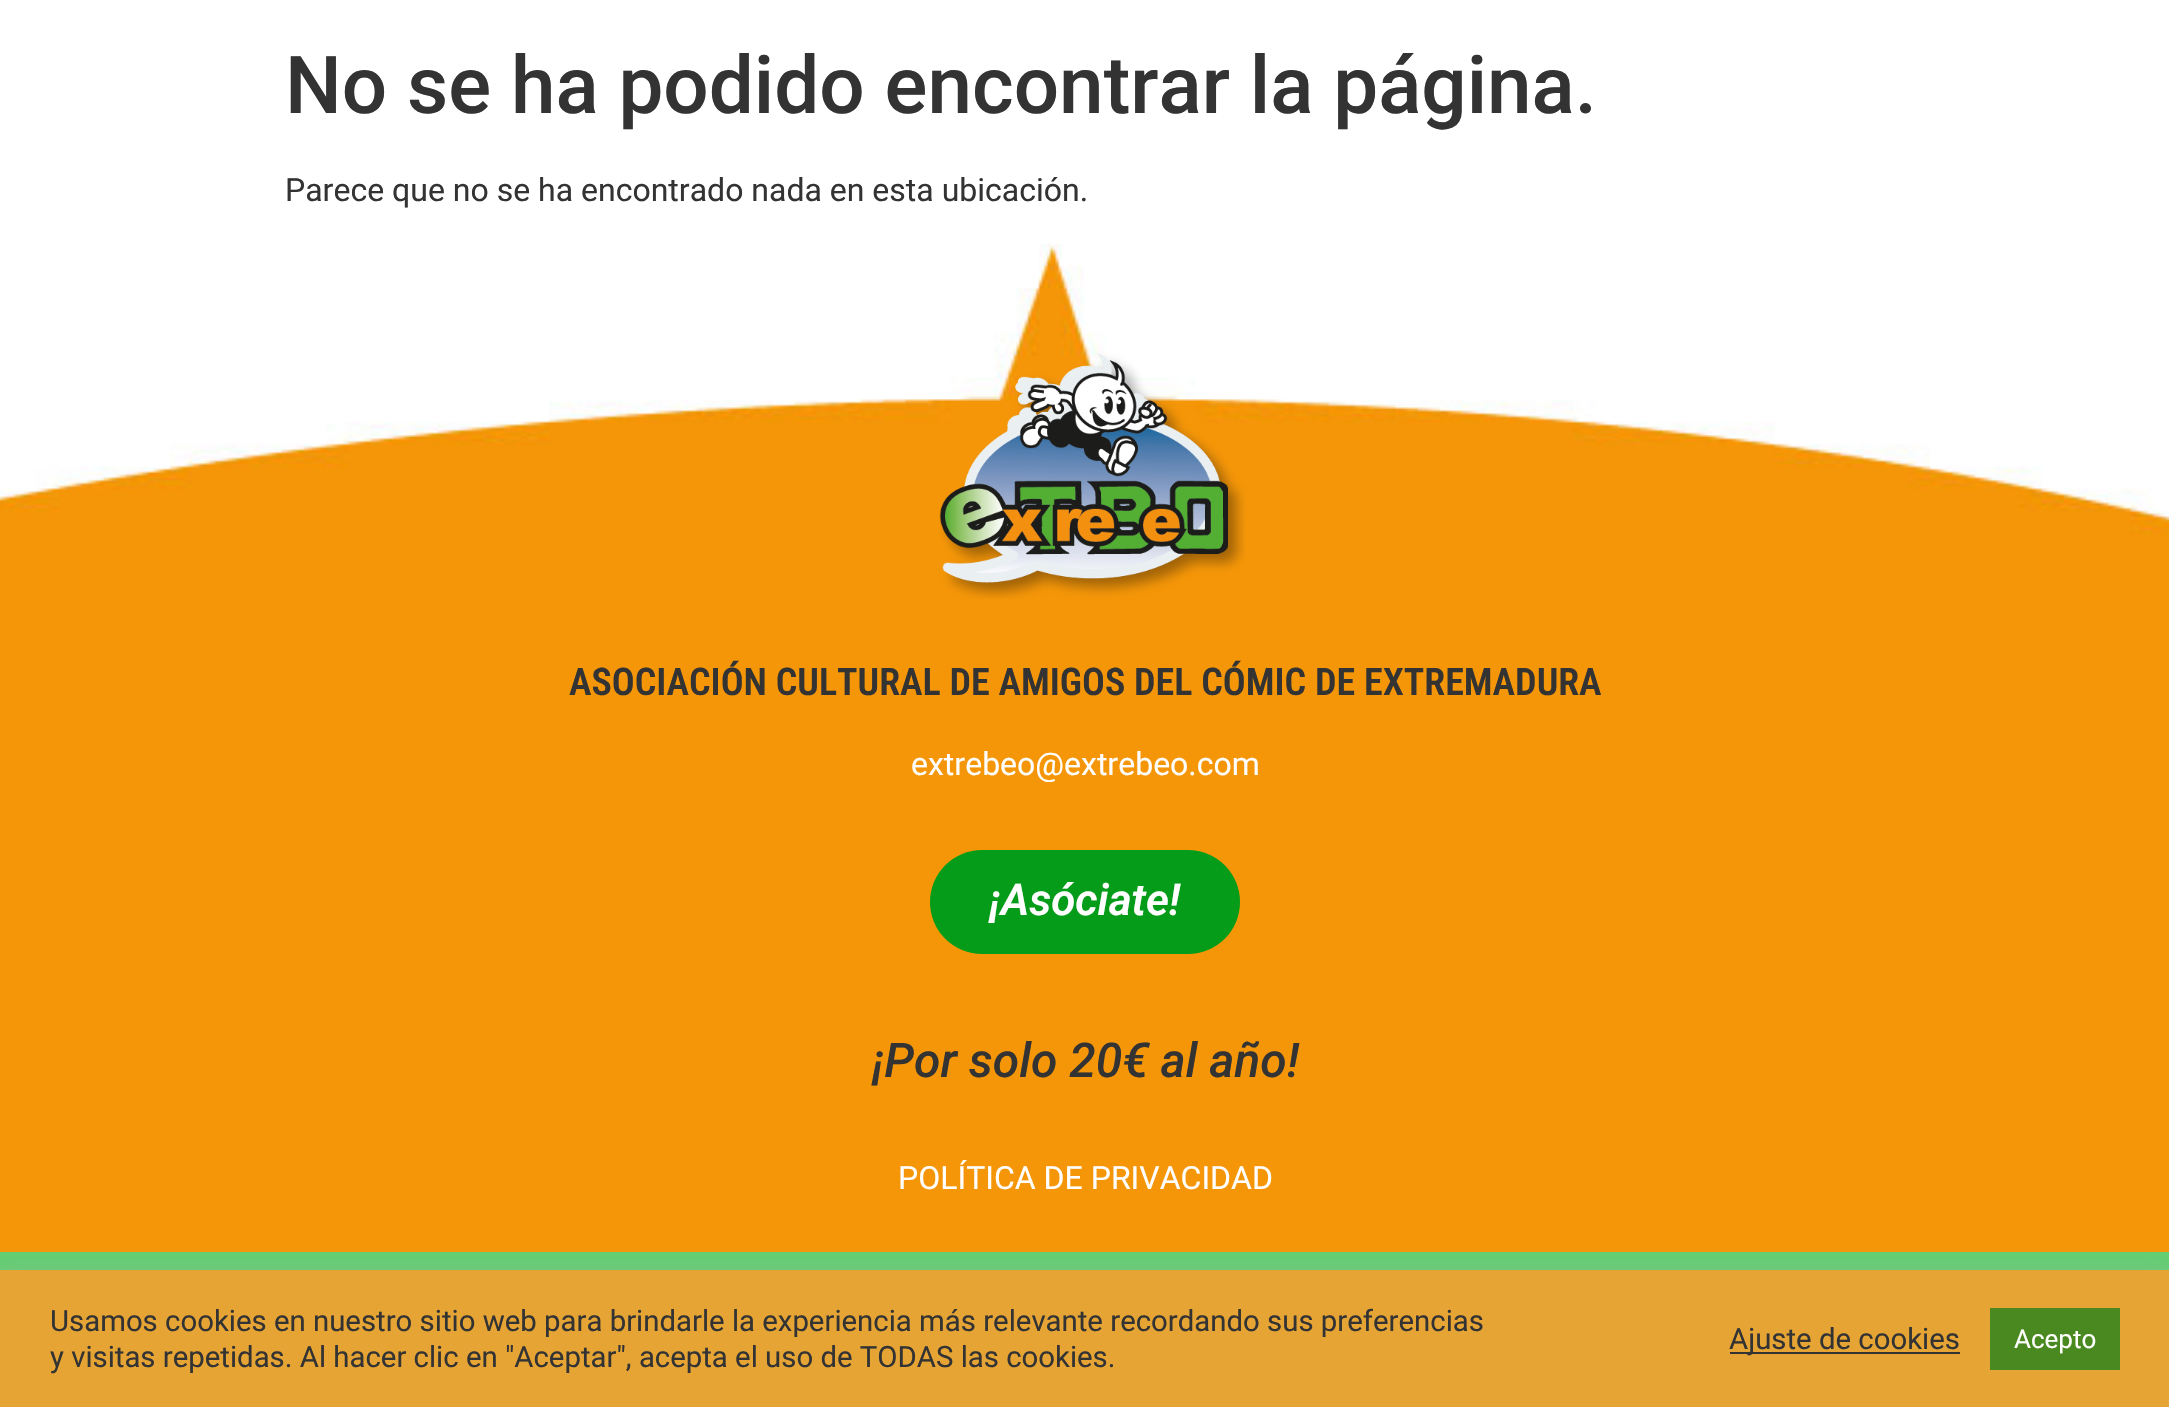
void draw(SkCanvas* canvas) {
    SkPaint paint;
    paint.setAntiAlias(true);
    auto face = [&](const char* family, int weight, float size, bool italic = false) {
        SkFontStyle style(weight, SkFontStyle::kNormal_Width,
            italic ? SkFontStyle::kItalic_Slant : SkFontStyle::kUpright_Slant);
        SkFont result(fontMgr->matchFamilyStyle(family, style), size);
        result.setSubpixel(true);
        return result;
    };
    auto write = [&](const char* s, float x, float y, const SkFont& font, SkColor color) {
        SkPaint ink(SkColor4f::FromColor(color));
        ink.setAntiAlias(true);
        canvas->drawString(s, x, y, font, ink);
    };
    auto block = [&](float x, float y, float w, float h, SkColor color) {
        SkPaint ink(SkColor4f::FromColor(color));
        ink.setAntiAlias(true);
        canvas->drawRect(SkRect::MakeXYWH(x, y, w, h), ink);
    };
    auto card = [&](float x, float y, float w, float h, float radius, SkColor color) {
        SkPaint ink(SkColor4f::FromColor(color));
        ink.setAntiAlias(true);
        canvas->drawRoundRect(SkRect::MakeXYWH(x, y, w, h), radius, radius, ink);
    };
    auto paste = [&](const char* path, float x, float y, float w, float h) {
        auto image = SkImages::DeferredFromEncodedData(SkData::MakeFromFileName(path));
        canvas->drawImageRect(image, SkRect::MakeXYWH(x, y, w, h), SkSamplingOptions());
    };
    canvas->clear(SK_ColorWHITE);
    auto kFont1 = face("Roboto", 500, 80);
    write("No se ha podido encontrar la página.", 285, 113, kFont1, SkColorSetRGB(51, 51, 51));
    auto kFont2 = face("Roboto", 400, 32);
    write("Parece que no se ha encontrado nada en esta ubicación.", 285, 201, kFont2, SkColorSetRGB(51, 51, 51));
    paste("pic1.png", 0, 244, 2169, 1008);
    paste("pic2.png", 939, 353, 306, 246);
    auto kFont3 = face("Roboto Condensed", 600, 38);
    write("ASOCIACIÓN CULTURAL DE AMIGOS DEL CÓMIC DE EXTREMADURA", 569, 695, kFont3, SkColorSetRGB(51, 51, 51));
    write("extrebeo@extrebeo.com", 911, 775, kFont2, SK_ColorWHITE);
    card(930, 850, 310, 104, 52, SkColorSetRGB(4, 156, 25));
    auto kFont4 = face("Roboto", 600, 44, true);
    write("¡Asóciate!", 989, 915, kFont4, SK_ColorWHITE);
    auto kFont5 = face("Roboto", 500, 48, true);
    write("¡Por solo 20€ al año!", 872, 1077, kFont5, SkColorSetRGB(51, 51, 51));
    write("POLÍTICA DE PRIVACIDAD", 898, 1189, kFont2, SK_ColorWHITE);
    block(0, 1252, 2169, 18, SkColorSetRGB(97, 206, 112));
    paint.setColor(SkColorSetARGB(77, 172, 171, 171));
    paint.setMaskFilter(SkMaskFilter::MakeBlur(kNormal_SkBlurStyle, 10));
    canvas->drawRect(SkRect::MakeXYWH(0, 1268, 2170, 138), paint);
    paint.setMaskFilter(nullptr);
    block(0, 1270, 2169, 137, SkColorSetRGB(229, 164, 52));
    auto kFont6 = face("Roboto", 400, 29.35f);
    write("Usamos cookies en nuestro sitio web para brindarle la experiencia más relevante recordando sus preferencias", 50, 1331, kFont6, SkColorSetRGB(51, 51, 51));
    write("y visitas repetidas. Al hacer clic en \"Aceptar\", acepta el uso de TODAS las cookies.", 50, 1367, kFont6, SkColorSetRGB(51, 51, 51));
    block(1730, 1352, 230, 2, SkColorSetRGB(51, 51, 51));
    write("Ajuste de cookies", 1729, 1349, kFont6, SkColorSetRGB(51, 51, 51));
    block(1990, 1308, 130, 62, SkColorSetRGB(74, 137, 31));
    auto kFont7 = face("Roboto", 400, 26);
    write("Acepto", 2014, 1348, kFont7, SK_ColorWHITE);
}
